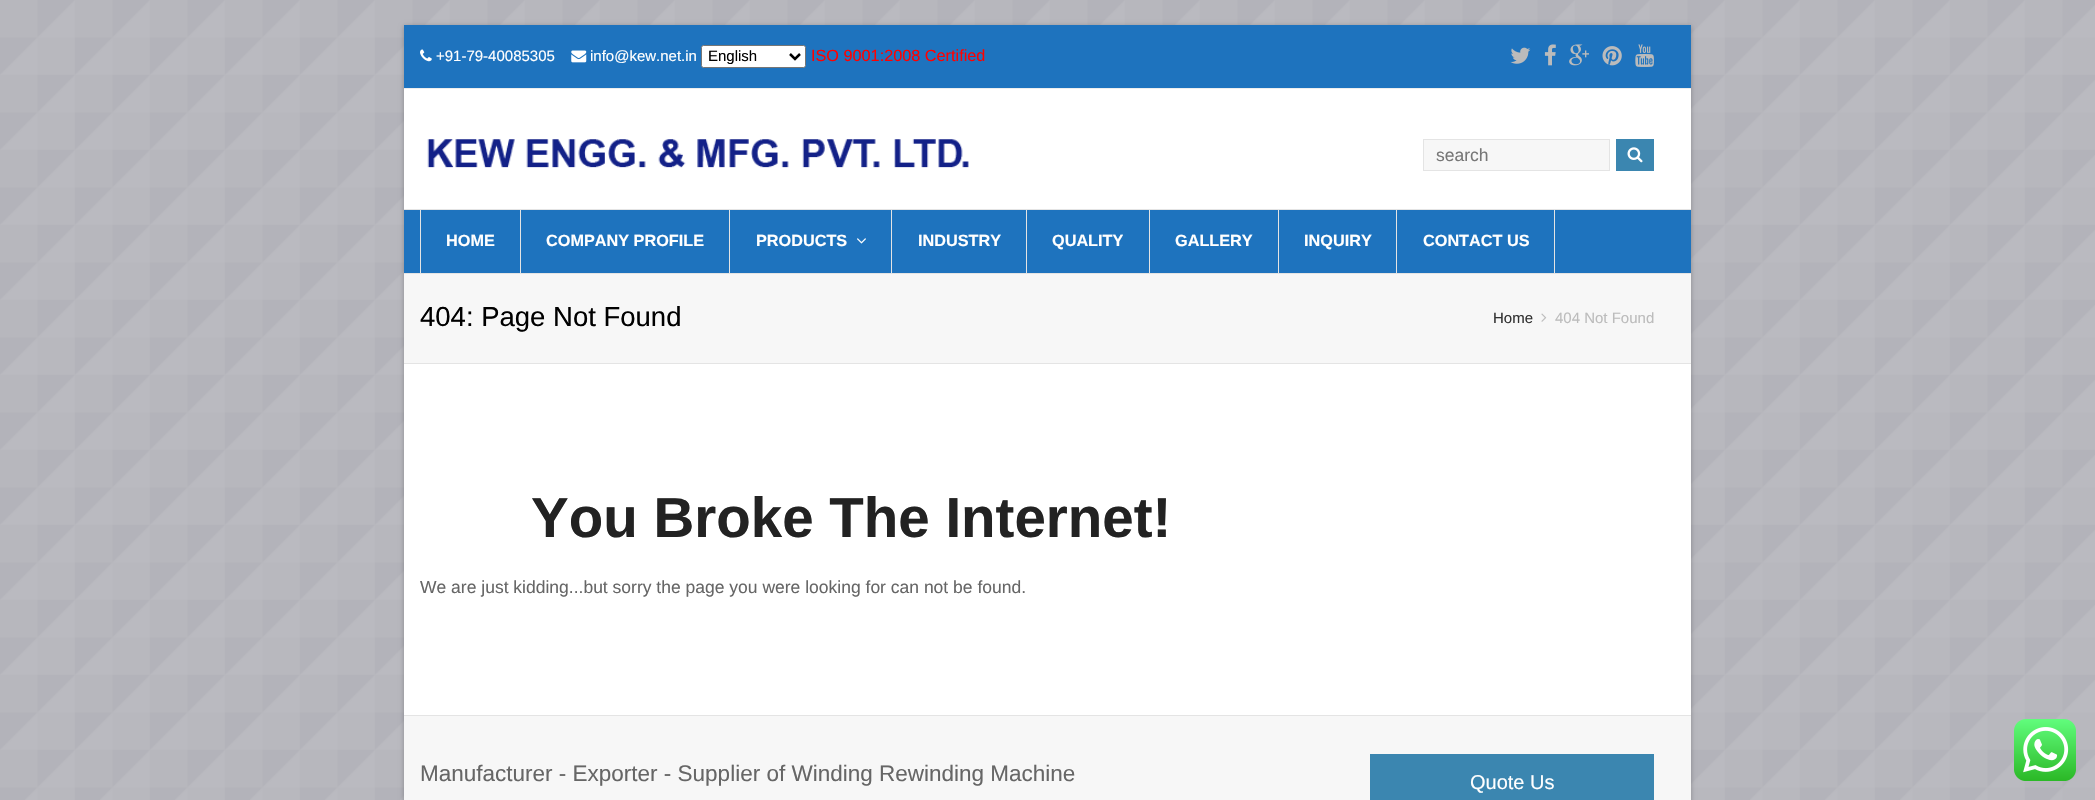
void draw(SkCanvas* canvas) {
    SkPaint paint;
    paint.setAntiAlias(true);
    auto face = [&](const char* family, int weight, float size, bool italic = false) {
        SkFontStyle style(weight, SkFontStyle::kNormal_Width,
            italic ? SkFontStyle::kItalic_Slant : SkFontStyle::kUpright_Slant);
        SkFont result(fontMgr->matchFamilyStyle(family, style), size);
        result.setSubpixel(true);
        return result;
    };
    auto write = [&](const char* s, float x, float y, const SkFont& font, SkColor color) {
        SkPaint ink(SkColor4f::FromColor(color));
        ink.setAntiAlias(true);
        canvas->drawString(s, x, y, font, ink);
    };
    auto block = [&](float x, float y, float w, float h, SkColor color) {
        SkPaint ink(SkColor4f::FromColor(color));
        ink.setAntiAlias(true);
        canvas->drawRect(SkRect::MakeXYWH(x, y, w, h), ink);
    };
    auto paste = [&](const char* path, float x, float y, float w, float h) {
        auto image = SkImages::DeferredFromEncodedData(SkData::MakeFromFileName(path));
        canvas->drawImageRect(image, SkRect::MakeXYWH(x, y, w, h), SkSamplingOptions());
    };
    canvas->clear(SK_ColorWHITE);
    paste("pic1.png", 0, 0, 2095, 800);
    paint.setColor(SkColorSetARGB(64, 0, 0, 0));
    paint.setMaskFilter(SkMaskFilter::MakeBlur(kNormal_SkBlurStyle, 2.5f));
    canvas->drawRect(SkRect::MakeXYWH(404, 26, 1287, 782), paint);
    paint.setMaskFilter(nullptr);
    block(404, 89, 1287, 626, SK_ColorWHITE);
    block(404, 25, 1287, 63, SkColorSetRGB(30, 115, 190));
    block(404, 88, 1287, 1, SkColorSetRGB(238, 238, 238));
    paste("pic2.png", 420, 49, 12, 13);
    auto kFont1 = face("Liberation Sans", 400, 15);
    write("+91-79-40085305", 436, 61, kFont1, SK_ColorWHITE);
    paste("pic3.png", 571, 50, 16, 13);
    write("info@kew.net.in", 590, 61, kFont1, SK_ColorWHITE);
    paint.setColor(SK_ColorWHITE);
    canvas->drawRoundRect(SkRect::MakeXYWH(701.5f, 45.5f, 104, 22), 2, 2, paint);
    paint.setStyle(SkPaint::kStroke_Style);
    paint.setStrokeWidth(1);
    paint.setColor(SkColorSetRGB(118, 118, 118));
    canvas->drawRoundRect(SkRect::MakeXYWH(701.5f, 45.5f, 104, 22), 2, 2, paint);
    paint.setStrokeWidth(2.5f);
    paint.setColor(SK_ColorBLACK);
    canvas->drawPath(SkPathBuilder().moveTo(790, 54).lineTo(795, 59).lineTo(800, 54).detach(), paint);
    write("English", 708, 61, kFont1, SK_ColorBLACK);
    auto kFont2 = face("Liberation Sans", 400, 16.25f);
    write("ISO 9001:2008 Certified", 811, 61, kFont2, SkColorSetRGB(255, 0, 0));
    paste("pic4.png", 1510, 47, 21, 17);
    paste("pic5.png", 1544, 44, 12, 22);
    paste("pic6.png", 1569, 44, 20, 22);
    paste("pic7.png", 1602, 46, 20, 20);
    paste("pic8.png", 1635, 44, 19, 23);
    paste("pic9.png", 427, 139, 542, 29);
    paint.setStyle(SkPaint::kFill_Style);
    paint.setColor(SkColorSetRGB(247, 247, 247));
    canvas->drawRect(SkRect::MakeXYWH(1423.5f, 139.5f, 186, 31), paint);
    paint.setStyle(SkPaint::kStroke_Style);
    paint.setStrokeWidth(1);
    paint.setColor(SkColorSetRGB(228, 228, 228));
    canvas->drawRect(SkRect::MakeXYWH(1423.5f, 139.5f, 186, 31), paint);
    auto kFont3 = face("Liberation Sans", 400, 17.5f);
    write("search", 1436, 161, kFont3, SkColorSetRGB(119, 119, 119));
    block(1616, 139, 38, 32, SkColorSetRGB(59, 134, 176));
    paste("pic10.png", 1627, 147, 16, 16);
    block(404, 210, 1287, 63, SkColorSetRGB(30, 115, 190));
    block(404, 209, 1287, 1, SkColorSetRGB(228, 228, 228));
    block(420, 210, 1, 63, SkColorSetRGB(228, 228, 228));
    block(520, 210, 1, 63, SkColorSetRGB(228, 228, 228));
    auto kFont4 = face("Liberation Sans", 700, 16.25f);
    write("HOME", 446, 246, kFont4, SK_ColorWHITE);
    block(729, 210, 1, 63, SkColorSetRGB(228, 228, 228));
    write("COMPANY PROFILE", 546, 246, kFont4, SK_ColorWHITE);
    block(891, 210, 1, 63, SkColorSetRGB(228, 228, 228));
    write("PRODUCTS", 756, 246, kFont4, SK_ColorWHITE);
    paste("pic11.png", 857, 238, 9, 6);
    block(1026, 210, 1, 63, SkColorSetRGB(228, 228, 228));
    write("INDUSTRY", 918, 246, kFont4, SK_ColorWHITE);
    block(1149, 210, 1, 63, SkColorSetRGB(228, 228, 228));
    write("QUALITY", 1052, 246, kFont4, SK_ColorWHITE);
    block(1278, 210, 1, 63, SkColorSetRGB(228, 228, 228));
    write("GALLERY", 1175, 246, kFont4, SK_ColorWHITE);
    block(1396, 210, 1, 63, SkColorSetRGB(228, 228, 228));
    write("INQUIRY", 1304, 246, kFont4, SK_ColorWHITE);
    block(1554, 210, 1, 63, SkColorSetRGB(228, 228, 228));
    write("CONTACT US", 1423, 246, kFont4, SK_ColorWHITE);
    block(404, 274, 1287, 89, SkColorSetRGB(247, 247, 247));
    block(404, 273, 1287, 1, SkColorSetRGB(228, 228, 228));
    block(404, 363, 1287, 1, SkColorSetRGB(228, 228, 228));
    auto kFont5 = face("Liberation Sans", 400, 27.5f);
    write("404: Page Not Found", 420, 326, kFont5, SK_ColorBLACK);
    write("Home", 1493, 323, kFont1, SkColorSetRGB(51, 51, 51));
    paste("pic12.png", 1541, 313, 6, 9);
    write("404 Not Found", 1555, 323, kFont1, SkColorSetRGB(188, 188, 188));
    auto kFont6 = face("Liberation Sans", 700, 56.5f);
    write("You Broke The Internet!", 531, 537, kFont6, SkColorSetRGB(34, 34, 34));
    write("We are just kidding...but sorry the page you were looking for can not be found.", 420, 593, kFont3, SkColorSetRGB(102, 102, 102));
    block(404, 716, 1287, 84, SkColorSetRGB(247, 247, 247));
    block(404, 715, 1287, 1, SkColorSetRGB(228, 228, 228));
    auto kFont7 = face("Liberation Sans", 400, 22.5f);
    write("Manufacturer - Exporter - Supplier of Winding Rewinding Machine", 420, 781, kFont7, SkColorSetRGB(102, 102, 102));
    block(1370, 754, 284, 46, SkColorSetRGB(59, 134, 176));
    auto kFont8 = face("Liberation Sans", 400, 20);
    write("Quote Us", 1470, 789, kFont8, SK_ColorWHITE);
    paste("pic13.png", 2014, 719, 62, 62);
}
